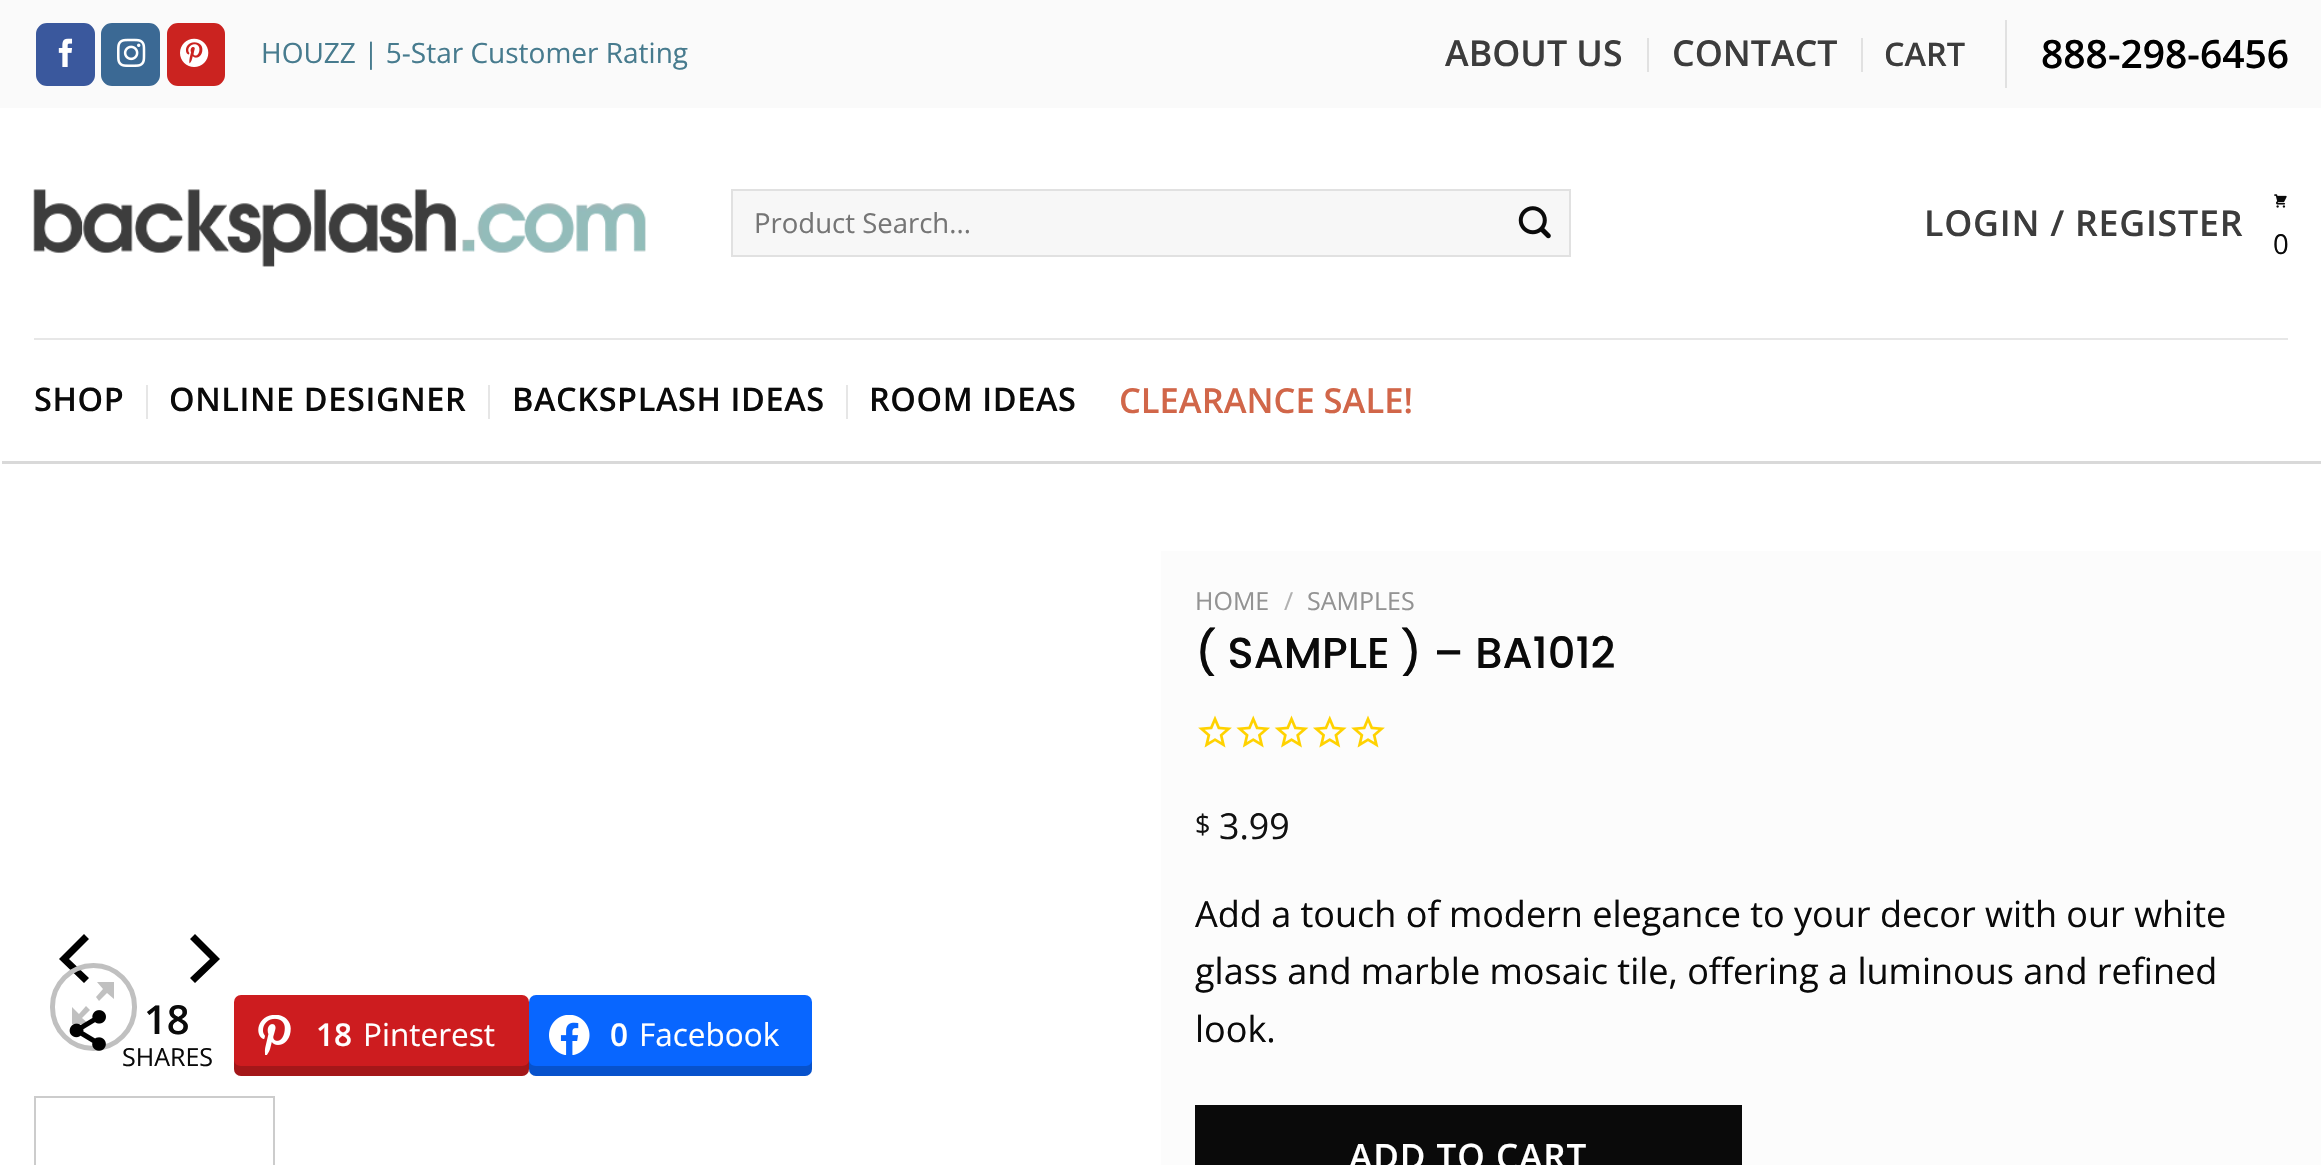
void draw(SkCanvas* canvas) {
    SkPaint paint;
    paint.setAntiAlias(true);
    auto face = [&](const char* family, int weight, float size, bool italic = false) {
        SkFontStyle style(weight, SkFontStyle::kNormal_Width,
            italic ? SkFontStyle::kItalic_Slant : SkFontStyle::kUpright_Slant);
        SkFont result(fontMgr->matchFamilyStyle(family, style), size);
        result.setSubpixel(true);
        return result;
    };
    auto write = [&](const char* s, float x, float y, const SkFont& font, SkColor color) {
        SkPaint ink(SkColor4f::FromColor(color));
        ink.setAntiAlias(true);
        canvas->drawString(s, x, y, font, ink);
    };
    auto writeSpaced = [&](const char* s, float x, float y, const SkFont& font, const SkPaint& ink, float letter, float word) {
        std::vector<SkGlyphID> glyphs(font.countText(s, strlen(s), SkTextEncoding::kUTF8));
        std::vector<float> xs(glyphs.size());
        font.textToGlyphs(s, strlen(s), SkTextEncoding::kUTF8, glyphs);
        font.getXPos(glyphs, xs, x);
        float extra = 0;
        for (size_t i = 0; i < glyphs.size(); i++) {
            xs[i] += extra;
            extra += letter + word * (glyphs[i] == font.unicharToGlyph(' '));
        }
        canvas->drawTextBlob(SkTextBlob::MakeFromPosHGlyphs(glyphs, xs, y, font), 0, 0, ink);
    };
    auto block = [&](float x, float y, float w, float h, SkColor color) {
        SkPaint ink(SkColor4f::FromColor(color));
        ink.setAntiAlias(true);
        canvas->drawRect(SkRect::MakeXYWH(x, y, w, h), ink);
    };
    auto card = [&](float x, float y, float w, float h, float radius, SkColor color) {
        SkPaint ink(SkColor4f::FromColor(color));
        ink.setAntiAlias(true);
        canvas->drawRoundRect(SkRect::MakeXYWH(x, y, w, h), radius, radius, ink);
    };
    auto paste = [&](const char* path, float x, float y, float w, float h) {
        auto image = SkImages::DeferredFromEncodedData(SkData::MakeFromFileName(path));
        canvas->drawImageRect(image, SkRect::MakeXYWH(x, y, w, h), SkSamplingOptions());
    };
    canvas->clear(SK_ColorWHITE);
    paint.setColor(SkColorSetRGB(217, 217, 217));
    canvas->drawPath(SkPathBuilder().moveTo(2, 461).lineTo(2, 464).lineTo(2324, 464).lineTo(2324, 2).lineTo(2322, 2).lineTo(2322, 461).close().detach(), paint);
    block(0, 0, 2321, 108, SkColorSetRGB(250, 250, 250));
    paint.setColor(SkColorSetRGB(58, 88, 157));
    canvas->drawRoundRect(SkRect::MakeXYWH(37, 24, 57, 61), 10, 10, paint);
    paint.setStyle(SkPaint::kStroke_Style);
    paint.setStrokeWidth(2);
    canvas->drawRoundRect(SkRect::MakeXYWH(37, 24, 57, 61), 10, 10, paint);
    paste("pic1.png", 58, 38, 15, 29);
    paint.setStyle(SkPaint::kFill_Style);
    paint.setColor(SkColorSetRGB(59, 105, 148));
    canvas->drawRoundRect(SkRect::MakeXYWH(102, 24, 57, 61), 10, 10, paint);
    paint.setStyle(SkPaint::kStroke_Style);
    canvas->drawRoundRect(SkRect::MakeXYWH(102, 24, 57, 61), 10, 10, paint);
    paste("pic2.png", 117, 38, 29, 29);
    paint.setStyle(SkPaint::kFill_Style);
    paint.setColor(SkColorSetRGB(203, 35, 32));
    canvas->drawRoundRect(SkRect::MakeXYWH(168, 24, 56, 61), 10, 10, paint);
    paint.setStyle(SkPaint::kStroke_Style);
    canvas->drawRoundRect(SkRect::MakeXYWH(168, 24, 56, 61), 10, 10, paint);
    paste("pic3.png", 180, 38, 29, 29);
    auto kFont1 = face("Open Sans", 400, 28);
    write("HOUZZ | 5-Star Customer Rating", 261, 63, kFont1, SkColorSetRGB(71, 123, 142));
    auto kFont2 = face("Open Sans", 600, 35.75f);
    write("ABOUT US", 1445, 66, kFont2, SkColorSetRGB(60, 60, 60));
    block(1647, 38, 2, 34, SkColorSetRGB(225, 225, 225));
    write("CONTACT", 1672, 66, kFont2, SkColorSetRGB(60, 60, 60));
    block(1861, 38, 2, 34, SkColorSetRGB(225, 225, 225));
    auto kFont3 = face("Open Sans", 600, 32.5f);
    write("CART", 1884, 66, kFont3, SkColorSetRGB(60, 60, 60));
    block(2005, 20, 2, 68, SkColorSetRGB(225, 225, 225));
    auto kFont4 = face("Open Sans", 600, 39);
    write("888-298-6456", 2041, 68, kFont4, SK_ColorBLACK);
    paste("pic4.png", 33, 189, 613, 78);
    paint.setStyle(SkPaint::kFill_Style);
    paint.setColor(SkColorSetRGB(247, 247, 247));
    canvas->drawRect(SkRect::MakeXYWH(732, 190, 838, 66), paint);
    paint.setStyle(SkPaint::kStroke_Style);
    paint.setColor(SkColorSetRGB(225, 225, 225));
    canvas->drawRect(SkRect::MakeXYWH(732, 190, 838, 66), paint);
    auto kFont5 = face("Open Sans", 400, 27.5f);
    write("Product Search...", 754, 233, kFont5, SkColorSetRGB(117, 117, 117));
    paste("pic5.png", 1518, 206, 33, 33);
    paint.setStyle(SkPaint::kFill_Style);
    paint.setColor(SkColorSetRGB(60, 60, 60));
    writeSpaced("LOGIN / REGISTER", 1924, 236, kFont2, paint, 0.75f, 0);
    paste("pic6.png", 2274, 194, 13, 14);
    write("0", 2273, 254, kFont5, SkColorSetRGB(10, 10, 10));
    block(34, 338, 2254, 2, SkColorSetRGB(231, 231, 231));
    paint.setColor(SkColorSetRGB(10, 10, 10));
    writeSpaced("SHOP", 34, 411, kFont3, paint, 0.6f, 0);
    block(146, 385, 2, 34, SkColorSetRGB(230, 230, 230));
    writeSpaced("ONLINE DESIGNER", 169, 411, kFont3, paint, 0.6f, 0);
    block(488, 385, 2, 34, SkColorSetRGB(230, 230, 230));
    writeSpaced("BACKSPLASH IDEAS", 512, 411, kFont3, paint, 0.6f, 0);
    block(846, 385, 2, 34, SkColorSetRGB(230, 230, 230));
    writeSpaced("ROOM IDEAS", 869, 411, kFont3, paint, 0.6f, 0);
    auto kFont6 = face("Open Sans", 600, 34.5f);
    write("CLEARANCE SALE!", 1119, 413, kFont6, SkColorSetRGB(209, 102, 73));
    paint.setColor(SK_ColorBLACK);
    canvas->drawPath(SkPathBuilder().moveTo(59, 959).lineTo(84, 983).lineTo(89, 978).lineTo(69, 959).lineTo(89, 939).lineTo(84, 934).close().detach(), paint);
    canvas->drawPath(SkPathBuilder().moveTo(220, 959).lineTo(195, 934).lineTo(190, 939).lineTo(210, 959).lineTo(190, 978).lineTo(195, 983).close().detach(), paint);
    paint.setStyle(SkPaint::kStroke_Style);
    paint.setStrokeWidth(5);
    paint.setColor(SkColorSetRGB(192, 192, 192));
    canvas->drawRoundRect(SkRect::MakeXYWH(52.5f, 965.5f, 82, 83), 41, 41, paint);
    paint.setStyle(SkPaint::kFill_Style);
    canvas->drawPath(SkPathBuilder().moveTo(114, 982).lineTo(114, 999).lineTo(107, 993).lineTo(99, 1001).lineTo(96, 997).lineTo(103, 989).lineTo(97, 982).close().moveTo(90, 1010).lineTo(82, 1018).lineTo(89, 1024).lineTo(72, 1024).lineTo(72, 1007).lineTo(79, 1014).lineTo(86, 1006).close().detach(), paint);
    paint.setStyle(SkPaint::kStroke_Style);
    paint.setStrokeWidth(2);
    paint.setColor(SkColorSetRGB(204, 204, 204));
    canvas->drawRect(SkRect::MakeXYWH(35, 1097, 239, 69), paint);
    block(1161, 551, 1160, 614, SkColorSetRGB(252, 252, 252));
    auto kFont7 = face("Open Sans", 400, 25);
    write("HOME", 1195, 610, kFont7, SkColorSetRGB(147, 147, 147));
    write("/", 1284, 610, kFont7, SkColorSetRGB(176, 176, 176));
    write("SAMPLES", 1307, 610, kFont7, SkColorSetRGB(147, 147, 147));
    auto kFont8 = face("Poppins", 500, 43.25f);
    write("( SAMPLE ) – BA1012", 1195, 668, kFont8, SkColorSetRGB(10, 10, 10));
    paste("pic7.png", 1198, 715, 34, 33);
    paste("pic8.png", 1236, 715, 34, 33);
    paste("pic9.png", 1274, 715, 35, 33);
    paste("pic10.png", 1313, 715, 34, 33);
    paste("pic7.png", 1351, 715, 34, 33);
    auto kFont9 = face("Open Sans", 400, 27);
    write("$", 1195, 834, kFont9, SkColorSetRGB(17, 17, 17));
    auto kFont10 = face("Open Sans", 400, 35.75f);
    write("3.99", 1219, 839, kFont10, SkColorSetRGB(17, 17, 17));
    auto kFont11 = face("Open Sans", 400, 36);
    write("Add a touch of modern elegance to your decor with our white", 1195, 927, kFont11, SkColorSetRGB(10, 10, 10));
    write("glass and marble mosaic tile, offering a luminous and refined", 1195, 984, kFont11, SkColorSetRGB(10, 10, 10));
    write("look.", 1195, 1042, kFont11, SkColorSetRGB(10, 10, 10));
    block(1195, 1105, 547, 60, SkColorSetRGB(10, 10, 10));
    auto kFont12 = face("Open Sans", 600, 35);
    paint.setStyle(SkPaint::kFill_Style);
    paint.setColor(SK_ColorWHITE);
    writeSpaced("ADD TO CART", 1349, 1169, kFont12, paint, 1, 0);
    paste("pic11.png", 69, 1010, 37, 41);
    auto kFont13 = face("Open Sans", 600, 40);
    write("18", 144, 1034, kFont13, SkColorSetRGB(10, 10, 10));
    write("SHARES", 122, 1066, kFont7, SkColorSetRGB(10, 10, 10));
    card(234, 995, 295, 81, 7, SkColorSetRGB(205, 28, 31));
    paint.setColor(SkColorSetARGB(51, 0, 0, 0));
    canvas->drawPath(SkPathBuilder().moveTo(234, 1060).lineTo(234, 1069).cubicTo(234, 1073, 237, 1076, 241, 1076).lineTo(522, 1076).cubicTo(526, 1076, 529, 1073, 529, 1069).lineTo(529, 1060).cubicTo(529, 1063, 526, 1066, 522, 1066).lineTo(241, 1066).cubicTo(237, 1066, 234, 1063, 234, 1060).close().detach(), paint);
    paste("pic12.png", 258, 1015, 33, 40);
    auto kFont14 = face("Open Sans", 600, 31.5f);
    write("18", 316, 1046, kFont14, SK_ColorWHITE);
    auto kFont15 = face("Open Sans", 400, 31.5f);
    write("Pinterest", 363, 1046, kFont15, SK_ColorWHITE);
    card(529, 995, 283, 81, 7, SkColorSetRGB(8, 102, 255));
    canvas->drawPath(SkPathBuilder().moveTo(529, 1060).lineTo(529, 1069).cubicTo(529, 1073, 532, 1076, 536, 1076).lineTo(805, 1076).cubicTo(809, 1076, 812, 1073, 812, 1069).lineTo(812, 1060).cubicTo(812, 1063, 809, 1066, 806, 1066).lineTo(536, 1066).cubicTo(532, 1066, 529, 1063, 529, 1060).close().detach(), paint);
    paste("pic13.png", 549, 1015, 41, 40);
    write("0", 610, 1046, kFont14, SK_ColorWHITE);
    write("Facebook", 639, 1046, kFont15, SK_ColorWHITE);
}
